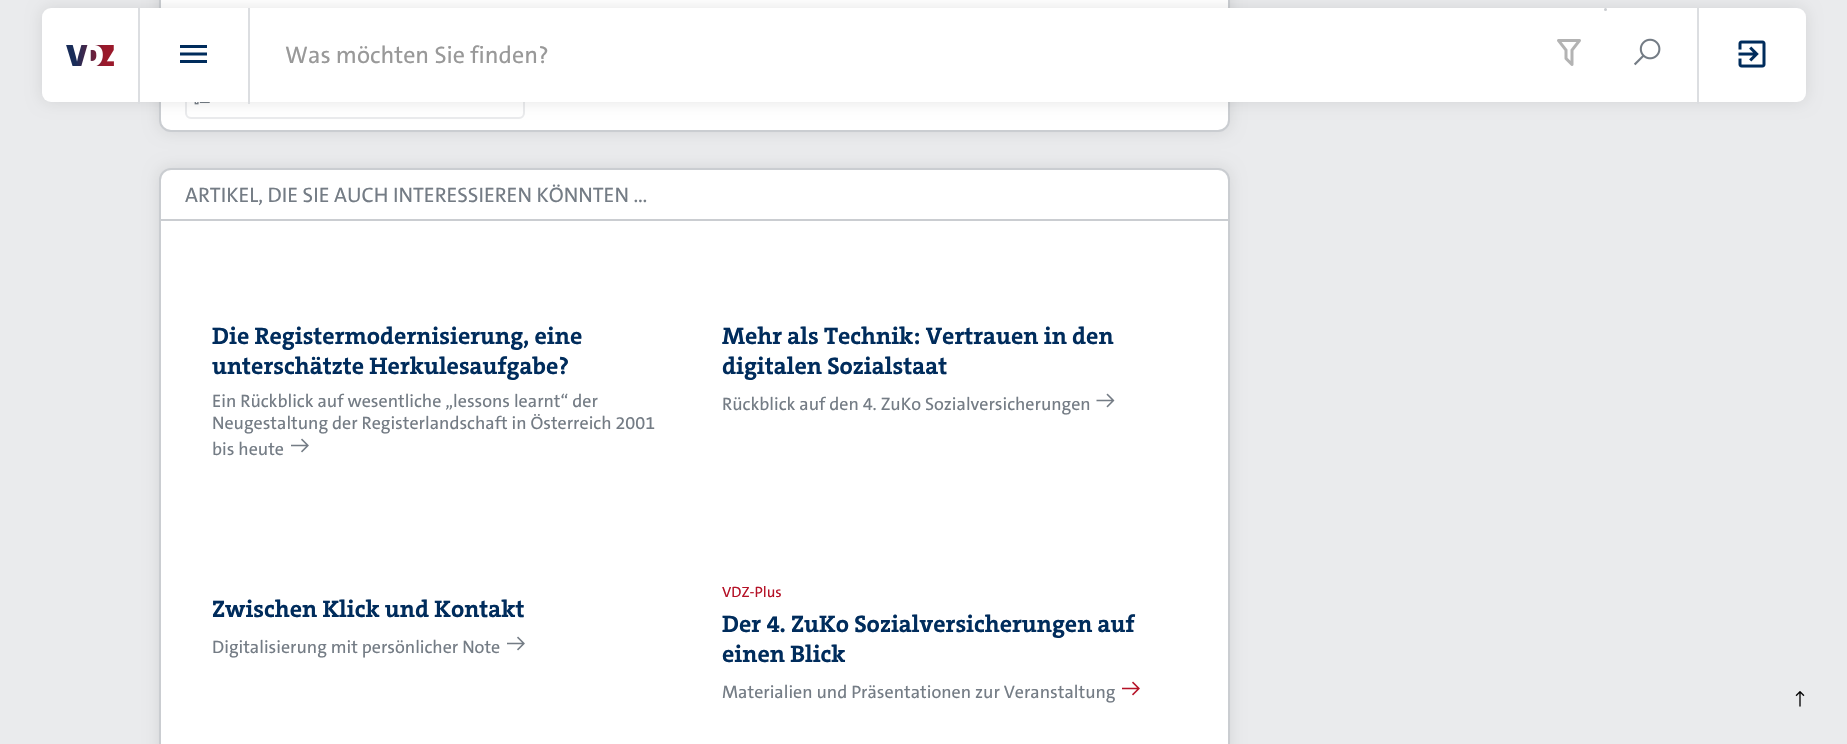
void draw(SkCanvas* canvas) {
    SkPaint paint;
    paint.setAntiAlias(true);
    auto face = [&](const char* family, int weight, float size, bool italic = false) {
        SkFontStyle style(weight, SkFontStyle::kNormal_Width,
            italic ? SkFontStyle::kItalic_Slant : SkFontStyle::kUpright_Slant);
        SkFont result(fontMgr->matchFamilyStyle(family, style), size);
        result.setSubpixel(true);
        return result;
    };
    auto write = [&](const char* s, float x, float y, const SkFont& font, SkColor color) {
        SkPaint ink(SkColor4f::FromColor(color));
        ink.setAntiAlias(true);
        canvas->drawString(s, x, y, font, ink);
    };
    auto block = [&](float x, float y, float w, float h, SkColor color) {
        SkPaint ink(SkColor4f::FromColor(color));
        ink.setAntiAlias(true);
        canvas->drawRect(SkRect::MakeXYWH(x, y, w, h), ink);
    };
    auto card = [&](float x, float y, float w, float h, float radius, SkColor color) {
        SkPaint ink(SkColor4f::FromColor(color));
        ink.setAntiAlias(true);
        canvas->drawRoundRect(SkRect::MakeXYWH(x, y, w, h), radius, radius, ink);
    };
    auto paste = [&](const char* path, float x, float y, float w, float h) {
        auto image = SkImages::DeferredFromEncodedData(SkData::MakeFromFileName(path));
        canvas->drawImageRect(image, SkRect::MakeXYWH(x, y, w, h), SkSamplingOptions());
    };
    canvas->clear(SkColorSetRGB(234, 235, 237));
    paint.setColor(SkColorSetARGB(26, 0, 0, 0));
    paint.setMaskFilter(SkMaskFilter::MakeBlur(kNormal_SkBlurStyle, 7.5f));
    canvas->drawRoundRect(SkRect::MakeXYWH(159, -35, 1071, 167), 12, 12, paint);
    paint.setMaskFilter(nullptr);
    paint.setColor(SK_ColorWHITE);
    canvas->drawRoundRect(SkRect::MakeXYWH(160, -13, 1069, 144), 11, 11, paint);
    paint.setStyle(SkPaint::kStroke_Style);
    paint.setStrokeWidth(2);
    paint.setColor(SkColorSetRGB(202, 205, 209));
    canvas->drawRoundRect(SkRect::MakeXYWH(160, -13, 1069, 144), 11, 11, paint);
    paint.setColor(SkColorSetRGB(234, 235, 237));
    canvas->drawRoundRect(SkRect::MakeXYWH(186, 79, 338, 39), 5, 5, paint);
    paste("pic6.png", 194, 102, 16, 3);
    paint.setStyle(SkPaint::kFill_Style);
    paint.setColor(SkColorSetARGB(26, 0, 0, 0));
    paint.setMaskFilter(SkMaskFilter::MakeBlur(kNormal_SkBlurStyle, 7.5f));
    canvas->drawRoundRect(SkRect::MakeXYWH(42, 8, 1764, 94), 9, 9, paint);
    paint.setMaskFilter(nullptr);
    card(42, 8, 1764, 94, 9, SK_ColorWHITE);
    block(138, 8, 2, 96, SkColorSetRGB(220, 222, 225));
    paste("pic1.png", 66, 45, 48, 21);
    block(248, 8, 2, 96, SkColorSetRGB(220, 222, 225));
    paste("pic2.png", 180, 45, 27, 18);
    auto kFont1 = face("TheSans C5", 500, 24);
    write("Was möchten Sie finden?", 285, 63, kFont1, SkColorSetRGB(153, 153, 153));
    paint.setColor(SkColorSetRGB(202, 205, 209));
    canvas->drawCircle(1605.5f, 9.5f, 1.5f, paint);
    paste("pic3.png", 1557, 39, 24, 27);
    paste("pic4.png", 1634, 38, 27, 28);
    block(1697, 8, 2, 96, SkColorSetRGB(220, 222, 225));
    paste("pic5.png", 1738, 40, 28, 28);
    paint.setColor(SkColorSetARGB(26, 0, 0, 0));
    paint.setMaskFilter(SkMaskFilter::MakeBlur(kNormal_SkBlurStyle, 7.5f));
    canvas->drawRoundRect(SkRect::MakeXYWH(159, 168, 1071, 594), 12, 12, paint);
    paint.setMaskFilter(nullptr);
    paint.setColor(SK_ColorWHITE);
    canvas->drawRoundRect(SkRect::MakeXYWH(160, 169, 1069, 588), 11, 11, paint);
    paint.setStyle(SkPaint::kStroke_Style);
    paint.setColor(SkColorSetRGB(202, 205, 209));
    canvas->drawRoundRect(SkRect::MakeXYWH(160, 169, 1069, 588), 11, 11, paint);
    block(161, 219, 1068, 2, SkColorSetRGB(202, 205, 209));
    auto kFont2 = face("TheSans C5", 500, 21);
    write("ARTIKEL, DIE SIE AUCH INTERESSIEREN KÖNNTEN …", 185, 202, kFont2, SkColorSetRGB(116, 124, 133));
    auto kFont3 = face("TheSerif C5", 700, 24);
    write("Die Registermodernisierung, eine", 212, 344, kFont3, SkColorSetRGB(0, 44, 92));
    write("unterschätzte Herkulesaufgabe?", 212, 374, kFont3, SkColorSetRGB(0, 44, 92));
    auto kFont4 = face("TheSans C5", 500, 18);
    write("Ein Rückblick auf wesentliche „lessons learnt“ der", 212, 407, kFont4, SkColorSetRGB(116, 124, 133));
    write("Neugestaltung der Registerlandschaft in Österreich 2001", 212, 429, kFont4, SkColorSetRGB(116, 124, 133));
    write("bis heute", 212, 455, kFont4, SkColorSetRGB(116, 124, 133));
    paste("pic7.png", 291, 438, 18, 15);
    write("Mehr als Technik: Vertrauen in den", 722, 344, kFont3, SkColorSetRGB(0, 44, 92));
    write("digitalen Sozialstaat", 722, 374, kFont3, SkColorSetRGB(0, 44, 92));
    write("Rückblick auf den 4. ZuKo Sozialversicherungen", 722, 410, kFont4, SkColorSetRGB(116, 124, 133));
    paste("pic8.png", 1096, 393, 19, 15);
    write("Zwischen Klick und Kontakt", 212, 617, kFont3, SkColorSetRGB(0, 44, 92));
    write("Digitalisierung mit persönlicher Note", 212, 653, kFont4, SkColorSetRGB(116, 124, 133));
    paste("pic7.png", 507, 636, 18, 15);
    auto kFont5 = face("TheSans C5", 500, 15);
    write("VDZ-Plus", 722, 597, kFont5, SkColorSetRGB(181, 18, 39));
    write("Der 4. ZuKo Sozialversicherungen auf", 722, 632, kFont3, SkColorSetRGB(0, 44, 92));
    write("einen Blick", 722, 662, kFont3, SkColorSetRGB(0, 44, 92));
    write("Materialien und Präsentationen zur Veranstaltung", 722, 698, kFont4, SkColorSetRGB(116, 124, 133));
    paste("pic9.png", 1122, 681, 18, 15);
    paste("pic10.png", 1795, 691, 10, 16);
}
